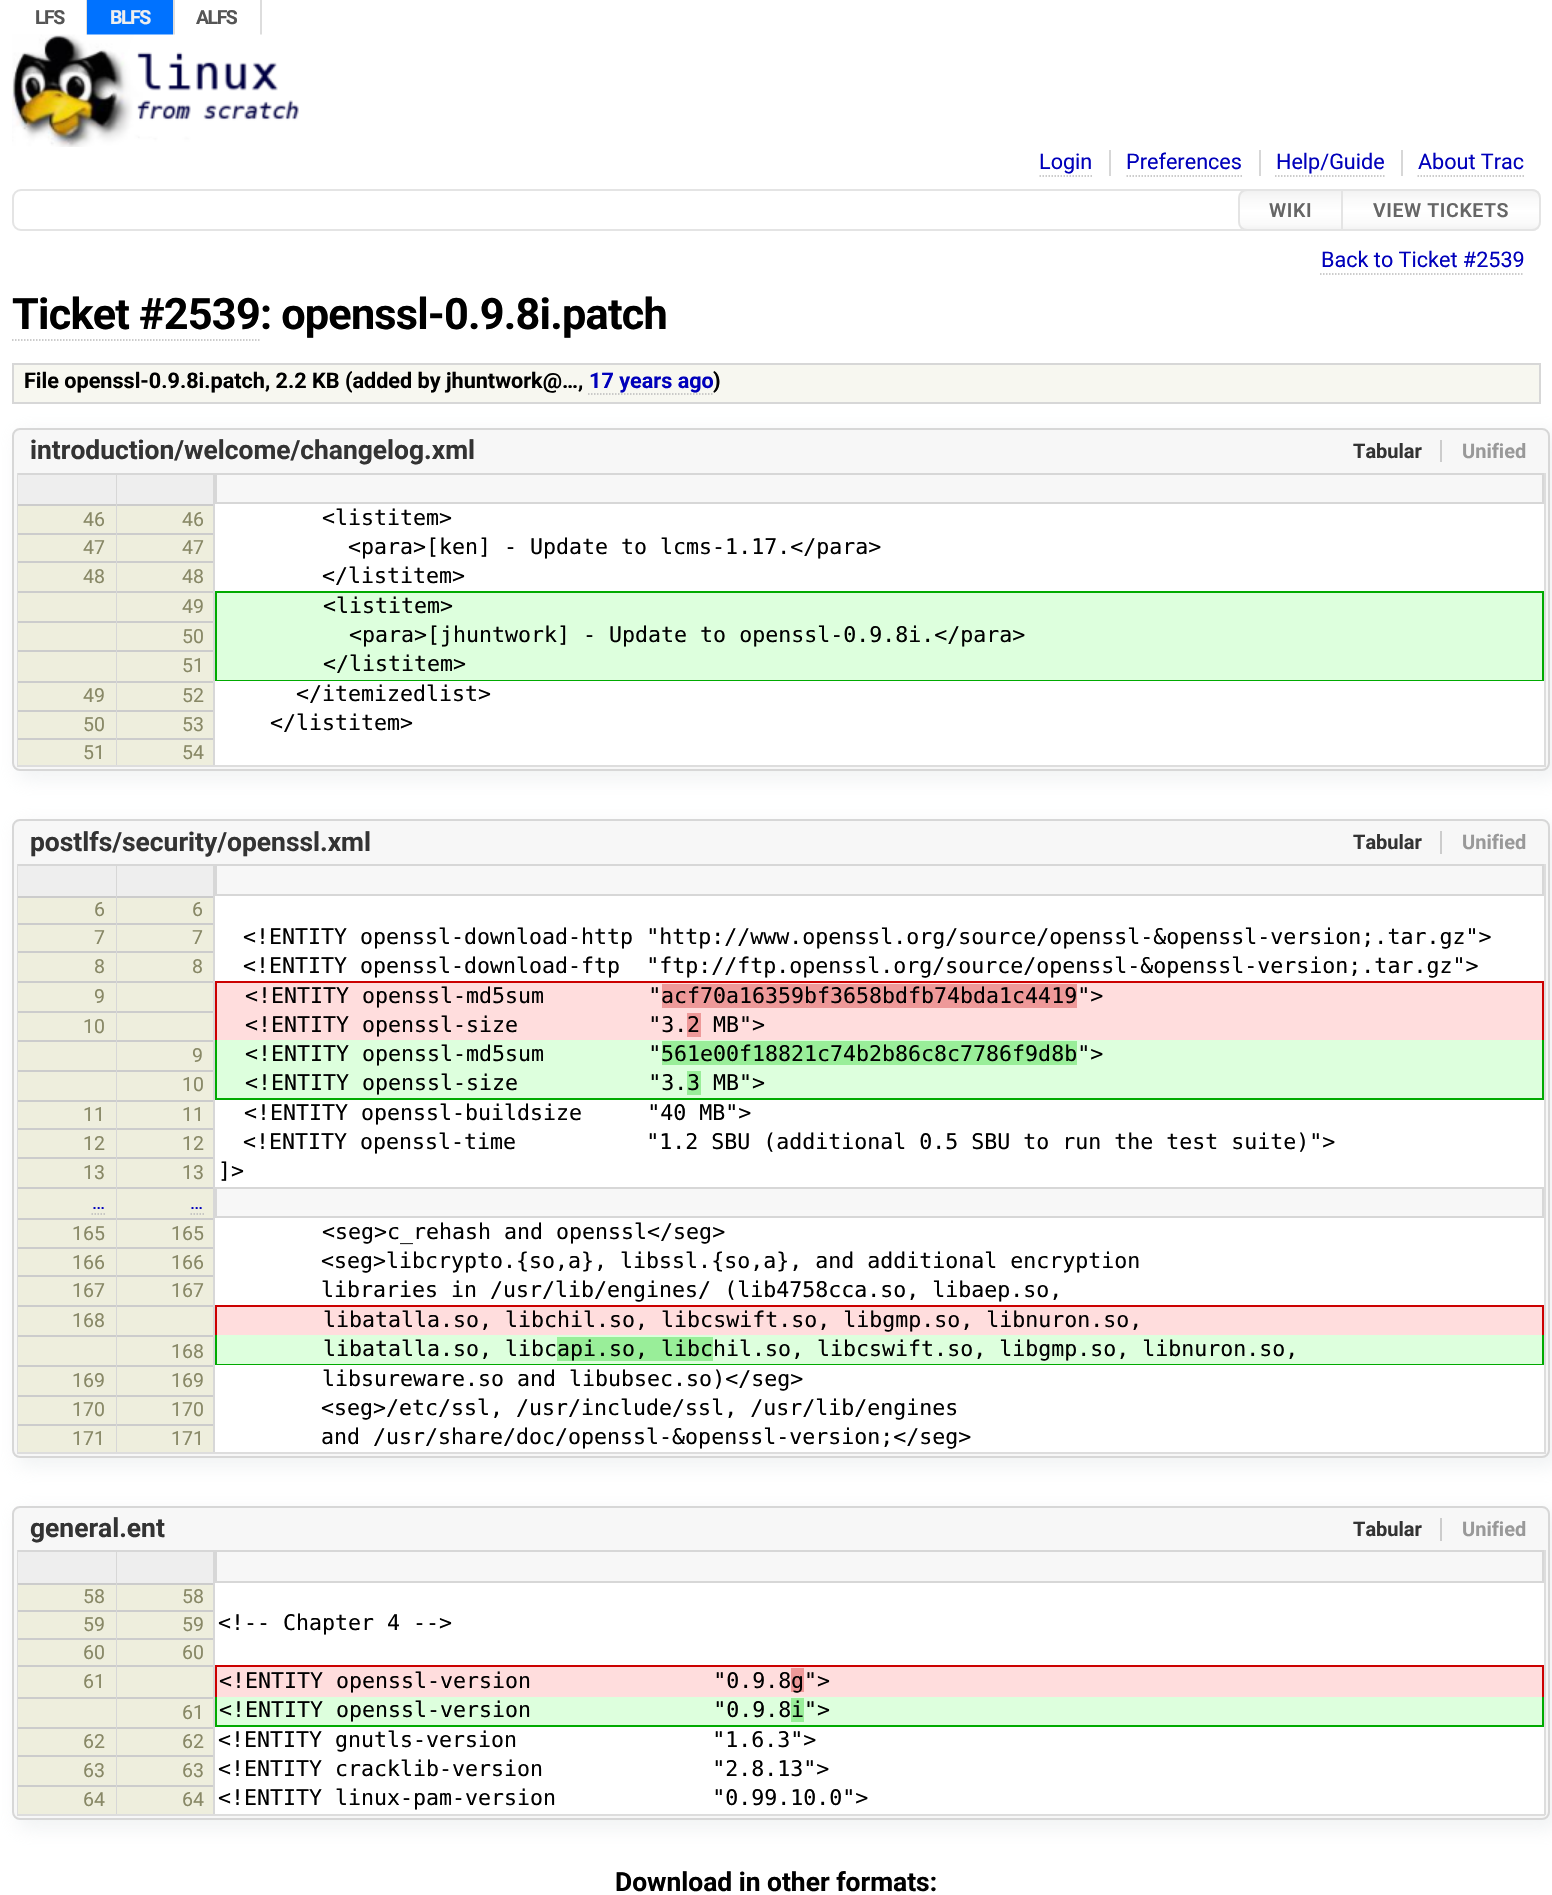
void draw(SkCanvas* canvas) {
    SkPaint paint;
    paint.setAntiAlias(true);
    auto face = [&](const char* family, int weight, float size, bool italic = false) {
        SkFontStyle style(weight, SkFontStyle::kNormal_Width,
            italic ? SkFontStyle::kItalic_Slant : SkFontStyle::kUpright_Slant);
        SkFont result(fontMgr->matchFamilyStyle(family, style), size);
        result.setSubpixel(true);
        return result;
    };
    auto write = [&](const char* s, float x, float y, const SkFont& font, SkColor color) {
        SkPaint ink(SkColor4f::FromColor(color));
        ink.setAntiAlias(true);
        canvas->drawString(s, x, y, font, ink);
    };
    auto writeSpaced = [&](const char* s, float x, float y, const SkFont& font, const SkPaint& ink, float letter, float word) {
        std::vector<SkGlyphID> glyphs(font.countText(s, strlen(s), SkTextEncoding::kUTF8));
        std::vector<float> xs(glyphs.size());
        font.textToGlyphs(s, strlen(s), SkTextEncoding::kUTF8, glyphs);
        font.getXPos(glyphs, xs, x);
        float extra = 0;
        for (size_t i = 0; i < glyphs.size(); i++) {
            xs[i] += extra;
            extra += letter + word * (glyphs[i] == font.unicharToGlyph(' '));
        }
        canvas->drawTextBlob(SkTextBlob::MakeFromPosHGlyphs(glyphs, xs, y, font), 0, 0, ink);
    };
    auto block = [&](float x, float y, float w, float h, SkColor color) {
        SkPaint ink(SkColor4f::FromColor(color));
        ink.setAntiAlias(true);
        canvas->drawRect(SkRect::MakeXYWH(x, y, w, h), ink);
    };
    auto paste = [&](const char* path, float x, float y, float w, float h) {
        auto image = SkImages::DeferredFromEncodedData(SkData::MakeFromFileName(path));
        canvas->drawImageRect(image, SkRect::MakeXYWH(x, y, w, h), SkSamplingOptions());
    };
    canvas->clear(SK_ColorWHITE);
    block(86, 0, 1, 35, SkColorSetRGB(221, 221, 221));
    auto kFont1 = face("Roboto", 700, 19.5f);
    paint.setColor(SkColorSetRGB(85, 85, 85));
    writeSpaced("LFS", 35, 24, kFont1, paint, -1.5f, 0);
    block(87, 0, 86, 35, SkColorSetRGB(0, 114, 255));
    block(173, 0, 2, 35, SkColorSetRGB(221, 221, 221));
    paint.setColor(SkColorSetRGB(238, 238, 238));
    writeSpaced("BLFS", 110, 24, kFont1, paint, -1.5f, 0);
    block(260, 0, 2, 35, SkColorSetRGB(221, 221, 221));
    paint.setColor(SkColorSetRGB(85, 85, 85));
    writeSpaced("ALFS", 196, 24, kFont1, paint, -1.5f, 0);
    paste("pic1.png", 12, 34, 287, 113);
    block(1109, 150, 2, 26, SkColorSetRGB(215, 215, 215));
    auto kFont2 = face("Roboto", 400, 21.6f);
    write("Login", 1039, 169, kFont2, SkColorSetRGB(0, 0, 187));
    paint.setStyle(SkPaint::kStroke_Style);
    paint.setStrokeWidth(1.5f);
    paint.setColor(SkColorSetRGB(187, 187, 187));
    paint.setPathEffect(SkDashPathEffect::Make({{1.5f, 1.5f}}, 0));
    canvas->drawPath(SkPathBuilder().moveTo(1039.5f, 176).lineTo(1092, 176).detach(), paint);
    paint.setPathEffect(nullptr);
    block(1259, 150, 2, 26, SkColorSetRGB(215, 215, 215));
    write("Preferences", 1126, 169, kFont2, SkColorSetRGB(0, 0, 187));
    paint.setPathEffect(SkDashPathEffect::Make({{1.5f, 1.5f}}, 0));
    canvas->drawPath(SkPathBuilder().moveTo(1126.5f, 176).lineTo(1242, 176).detach(), paint);
    paint.setPathEffect(nullptr);
    block(1401, 150, 2, 26, SkColorSetRGB(215, 215, 215));
    write("Help/Guide", 1276, 169, kFont2, SkColorSetRGB(0, 0, 187));
    paint.setPathEffect(SkDashPathEffect::Make({{1.5f, 1.5f}}, 0));
    canvas->drawPath(SkPathBuilder().moveTo(1275, 176).lineTo(1384.5f, 176).detach(), paint);
    paint.setPathEffect(nullptr);
    write("About Trac", 1418, 169, kFont2, SkColorSetRGB(0, 0, 187));
    paint.setPathEffect(SkDashPathEffect::Make({{1.5f, 1.5f}}, 0));
    canvas->drawPath(SkPathBuilder().moveTo(1417.5f, 176).lineTo(1524, 176).detach(), paint);
    paint.setPathEffect(nullptr);
    paint.setStrokeWidth(2);
    paint.setColor(SkColorSetRGB(228, 228, 228));
    canvas->drawRoundRect(SkRect::MakeXYWH(13, 190, 1527, 40), 8, 8, paint);
    canvas->save();
    canvas->clipPath(SkPathBuilder().moveTo(1247, 189).lineTo(1344, 189).lineTo(1344, 231).lineTo(1247, 231).cubicTo(1242, 231, 1238, 227, 1238, 222).lineTo(1238, 198).cubicTo(1238, 193, 1242, 189, 1247, 189).close().detach(), true);
    paint.setStyle(SkPaint::kFill_Style);
    {
        const SkColor colors[] = {SkColorSetRGB(242, 242, 242), SkColorSetRGB(250, 250, 250), SkColorSetRGB(254, 254, 254), SK_ColorWHITE, SkColorSetRGB(250, 250, 250), SkColorSetRGB(242, 242, 242)};
        const float stops[] = {0, 0.25f, 0.49f, 0.51f, 0.85f, 1};
        const SkPoint ends[] = {{1291, 191}, {1291, 230}};
        paint.setShader(SkGradientShader::MakeLinear(ends, colors, stops, 6, SkTileMode::kClamp));
        paint.setAlpha(255);
    }
    canvas->drawRect(SkRect::MakeXYWH(1238, 191, 103, 39), paint);
    canvas->restore();
    paint.setStyle(SkPaint::kStroke_Style);
    paint.setShader(nullptr);
    paint.setColor(SkColorSetRGB(228, 228, 228));
    canvas->drawPath(SkPathBuilder().moveTo(1247, 190).lineTo(1343, 190).lineTo(1343, 230).lineTo(1247, 230).cubicTo(1242.5f, 230, 1239, 226.5f, 1239, 222).lineTo(1239, 198).cubicTo(1239, 193.5f, 1242.5f, 190, 1247, 190).close().detach(), paint);
    auto kFont3 = face("Roboto", 600, 19.5f);
    paint.setStyle(SkPaint::kFill_Style);
    paint.setColor(SkColorSetRGB(102, 102, 102));
    writeSpaced("WIKI", 1269, 217, kFont3, paint, 0.6f, 0);
    canvas->save();
    canvas->clipPath(SkPathBuilder().moveTo(1341, 189).lineTo(1532, 189).cubicTo(1537, 189, 1541, 193, 1541, 198).lineTo(1541, 222).cubicTo(1541, 227, 1537, 231, 1532, 231).lineTo(1341, 231).close().detach(), true);
    {
        const SkColor colors[] = {SkColorSetRGB(242, 242, 242), SkColorSetRGB(250, 250, 250), SkColorSetRGB(254, 254, 254), SK_ColorWHITE, SkColorSetRGB(250, 250, 250), SkColorSetRGB(242, 242, 242)};
        const float stops[] = {0, 0.25f, 0.49f, 0.51f, 0.85f, 1};
        const SkPoint ends[] = {{1441, 190}, {1441, 230}};
        paint.setShader(SkGradientShader::MakeLinear(ends, colors, stops, 6, SkTileMode::kClamp));
        paint.setAlpha(255);
    }
    canvas->drawRect(SkRect::MakeXYWH(1343, 191, 198, 39), paint);
    canvas->restore();
    paint.setStyle(SkPaint::kStroke_Style);
    paint.setShader(nullptr);
    paint.setColor(SkColorSetRGB(228, 228, 228));
    canvas->drawPath(SkPathBuilder().moveTo(1342, 190).lineTo(1532, 190).cubicTo(1536.5f, 190, 1540, 193.5f, 1540, 198).lineTo(1540, 222).cubicTo(1540, 226.5f, 1536.5f, 230, 1532, 230).lineTo(1342, 230).close().detach(), paint);
    paint.setStyle(SkPaint::kFill_Style);
    paint.setColor(SkColorSetRGB(102, 102, 102));
    writeSpaced("VIEW TICKETS", 1373, 217, kFont3, paint, 0.6f, 0);
    write("Back to Ticket #2539", 1321, 267, kFont2, SkColorSetRGB(0, 0, 187));
    paint.setStyle(SkPaint::kStroke_Style);
    paint.setStrokeWidth(1.5f);
    paint.setColor(SkColorSetRGB(187, 187, 187));
    paint.setPathEffect(SkDashPathEffect::Make({{1.5f, 1.5f}}, 0));
    canvas->drawPath(SkPathBuilder().moveTo(1320, 274).lineTo(1524, 274).detach(), paint);
    paint.setPathEffect(nullptr);
    auto kFont4 = face("Roboto", 700, 43.25f);
    paint.setStyle(SkPaint::kFill_Style);
    paint.setColor(SK_ColorBLACK);
    writeSpaced("Ticket #2539: openssl-0.9.8i.patch", 12, 329, kFont4, paint, -0.8f, 0);
    paint.setStyle(SkPaint::kStroke_Style);
    paint.setColor(SkColorSetRGB(187, 187, 187));
    paint.setPathEffect(SkDashPathEffect::Make({{1.5f, 1.5f}}, 0));
    canvas->drawPath(SkPathBuilder().moveTo(12, 340).lineTo(259.5f, 340).detach(), paint);
    paint.setPathEffect(nullptr);
    block(14, 365, 1525, 37, SkColorSetRGB(247, 247, 240));
    block(12, 363, 1529, 2, SkColorSetRGB(215, 215, 215));
    block(1539, 363, 2, 41, SkColorSetRGB(215, 215, 215));
    block(12, 402, 1529, 2, SkColorSetRGB(215, 215, 215));
    block(12, 363, 2, 41, SkColorSetRGB(215, 215, 215));
    auto kFont5 = face("Roboto", 700, 21.6f);
    write("File openssl-0.9.8i.patch, 2.2 KB (added by jhuntwork@…,", 24, 388, kFont5, SK_ColorBLACK);
    write("17 years ago", 589, 388, kFont5, SkColorSetRGB(0, 0, 187));
    paint.setPathEffect(SkDashPathEffect::Make({{1.5f, 1.5f}}, 0));
    canvas->drawPath(SkPathBuilder().moveTo(588, 394).lineTo(714, 394).detach(), paint);
    paint.setPathEffect(nullptr);
    write(")", 713, 388, kFont5, SK_ColorBLACK);
    paint.setStyle(SkPaint::kFill_Style);
    paint.setColor(SkColorSetARGB(77, 210, 215, 220));
    paint.setMaskFilter(SkMaskFilter::MakeBlur(kNormal_SkBlurStyle, 9));
    canvas->drawRoundRect(SkRect::MakeXYWH(17, 432, 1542, 348), 9, 9, paint);
    paint.setMaskFilter(nullptr);
    paint.setColor(SkColorSetRGB(247, 247, 247));
    canvas->drawRoundRect(SkRect::MakeXYWH(13, 429, 1536, 341), 7, 7, paint);
    paint.setStyle(SkPaint::kStroke_Style);
    paint.setStrokeWidth(2);
    paint.setColor(SkColorSetRGB(215, 215, 215));
    canvas->drawRoundRect(SkRect::MakeXYWH(13, 429, 1536, 341), 7, 7, paint);
    auto kFont6 = face("Roboto", 700, 26.4f);
    write("introduction/welcome/changelog.xml", 30, 459, kFont6, SkColorSetRGB(51, 51, 51));
    auto kFont7 = face("Roboto", 700, 20);
    write("Tabular", 1353, 458, kFont7, SkColorSetRGB(51, 51, 51));
    write("Unified", 1462, 458, kFont7, SkColorSetRGB(153, 153, 153));
    block(1440, 440, 2, 22, SkColorSetRGB(204, 204, 204));
    block(1544, 473, 2, 294, SkColorSetRGB(221, 221, 221));
    block(17, 765, 1528, 2, SkColorSetRGB(221, 221, 221));
    block(17, 473, 2, 294, SkColorSetRGB(221, 221, 221));
    block(18, 475, 98, 29, SkColorSetRGB(238, 238, 238));
    block(18, 473, 197, 2, SkColorSetRGB(215, 215, 215));
    block(116, 473, 1, 31, SkColorSetRGB(215, 215, 215));
    block(117, 475, 96, 29, SkColorSetRGB(238, 238, 238));
    block(213, 473, 2, 31, SkColorSetRGB(215, 215, 215));
    canvas->drawRect(SkRect::MakeXYWH(216, 474, 1327, 29), paint);
    block(18, 506, 98, 27, SkColorSetRGB(238, 238, 221));
    block(18, 504, 197, 2, SkColorSetRGB(204, 204, 204));
    block(116, 504, 1, 29, SkColorSetRGB(215, 215, 215));
    auto kFont8 = face("Roboto", 400, 19.5f);
    write("46", 83, 526, kFont8, SkColorSetRGB(136, 136, 102));
    block(117, 506, 96, 27, SkColorSetRGB(238, 238, 221));
    block(213, 504, 2, 29, SkColorSetRGB(215, 215, 215));
    write("46", 182, 526, kFont8, SkColorSetRGB(136, 136, 102));
    block(215, 504, 1329, 87, SK_ColorWHITE);
    auto kFont9 = face("DejaVu Sans Mono", 400, 21.6f);
    write("<listitem>", 322, 525, kFont9, SK_ColorBLACK);
    block(18, 535, 98, 26, SkColorSetRGB(238, 238, 221));
    block(18, 533, 197, 2, SkColorSetRGB(204, 204, 204));
    block(116, 533, 1, 28, SkColorSetRGB(215, 215, 215));
    write("47", 83, 554, kFont8, SkColorSetRGB(136, 136, 102));
    block(117, 535, 96, 26, SkColorSetRGB(238, 238, 221));
    block(213, 533, 2, 28, SkColorSetRGB(215, 215, 215));
    write("47", 182, 554, kFont8, SkColorSetRGB(136, 136, 102));
    write("<para>[ken] - Update to lcms-1.17.</para>", 348, 554, kFont9, SK_ColorBLACK);
    block(18, 563, 98, 28, SkColorSetRGB(238, 238, 221));
    block(18, 561, 197, 2, SkColorSetRGB(204, 204, 204));
    block(116, 561, 1, 30, SkColorSetRGB(215, 215, 215));
    write("48", 83, 583, kFont8, SkColorSetRGB(136, 136, 102));
    block(117, 563, 96, 28, SkColorSetRGB(238, 238, 221));
    block(213, 561, 2, 30, SkColorSetRGB(215, 215, 215));
    write("48", 182, 583, kFont8, SkColorSetRGB(136, 136, 102));
    write("</listitem>", 322, 583, kFont9, SK_ColorBLACK);
    block(18, 593, 98, 28, SkColorSetRGB(238, 238, 221));
    block(18, 591, 197, 2, SkColorSetRGB(204, 204, 204));
    block(116, 591, 1, 30, SkColorSetRGB(215, 215, 215));
    block(217, 593, 1325, 87, SkColorSetRGB(221, 255, 221));
    block(215, 591, 1329, 2, SkColorSetRGB(0, 170, 0));
    block(1542, 591, 2, 90, SkColorSetRGB(0, 170, 0));
    block(215, 591, 2, 59, SkColorSetRGB(0, 170, 0));
    write("<listitem>", 323, 613, kFont9, SK_ColorBLACK);
    block(117, 593, 96, 28, SkColorSetRGB(238, 238, 221));
    block(213, 591, 2, 30, SkColorSetRGB(215, 215, 215));
    write("49", 182, 613, kFont8, SkColorSetRGB(136, 136, 102));
    block(18, 623, 98, 27, SkColorSetRGB(238, 238, 221));
    block(18, 621, 197, 2, SkColorSetRGB(204, 204, 204));
    block(116, 621, 1, 29, SkColorSetRGB(215, 215, 215));
    write("<para>[jhuntwork] - Update to openssl-0.9.8i.</para>", 349, 642, kFont9, SK_ColorBLACK);
    block(117, 623, 96, 27, SkColorSetRGB(238, 238, 221));
    block(213, 621, 2, 29, SkColorSetRGB(215, 215, 215));
    write("50", 182, 643, kFont8, SkColorSetRGB(136, 136, 102));
    block(18, 652, 98, 29, SkColorSetRGB(238, 238, 221));
    block(18, 650, 197, 2, SkColorSetRGB(204, 204, 204));
    block(116, 650, 1, 31, SkColorSetRGB(215, 215, 215));
    block(215, 680, 1329, 1, SkColorSetRGB(0, 170, 0));
    block(215, 650, 2, 31, SkColorSetRGB(0, 170, 0));
    write("</listitem>", 323, 671, kFont9, SK_ColorBLACK);
    block(117, 652, 96, 29, SkColorSetRGB(238, 238, 221));
    block(213, 650, 2, 31, SkColorSetRGB(215, 215, 215));
    write("51", 182, 672, kFont8, SkColorSetRGB(136, 136, 102));
    block(18, 683, 98, 27, SkColorSetRGB(238, 238, 221));
    block(18, 681, 197, 2, SkColorSetRGB(204, 204, 204));
    block(116, 681, 1, 29, SkColorSetRGB(215, 215, 215));
    write("49", 83, 702, kFont8, SkColorSetRGB(136, 136, 102));
    block(117, 683, 96, 27, SkColorSetRGB(238, 238, 221));
    block(213, 681, 2, 29, SkColorSetRGB(215, 215, 215));
    write("52", 182, 702, kFont8, SkColorSetRGB(136, 136, 102));
    block(215, 681, 1329, 84, SK_ColorWHITE);
    write("</itemizedlist>", 296, 701, kFont9, SK_ColorBLACK);
    block(18, 712, 98, 26, SkColorSetRGB(238, 238, 221));
    block(18, 710, 197, 2, SkColorSetRGB(204, 204, 204));
    block(116, 710, 1, 28, SkColorSetRGB(215, 215, 215));
    write("50", 83, 731, kFont8, SkColorSetRGB(136, 136, 102));
    block(117, 712, 96, 26, SkColorSetRGB(238, 238, 221));
    block(213, 710, 2, 28, SkColorSetRGB(215, 215, 215));
    write("53", 182, 731, kFont8, SkColorSetRGB(136, 136, 102));
    write("</listitem>", 270, 730, kFont9, SK_ColorBLACK);
    block(18, 740, 98, 25, SkColorSetRGB(238, 238, 221));
    block(18, 738, 197, 2, SkColorSetRGB(204, 204, 204));
    block(116, 738, 1, 27, SkColorSetRGB(215, 215, 215));
    write("51", 83, 759, kFont8, SkColorSetRGB(136, 136, 102));
    block(117, 740, 96, 25, SkColorSetRGB(238, 238, 221));
    block(213, 738, 2, 27, SkColorSetRGB(215, 215, 215));
    write("54", 182, 759, kFont8, SkColorSetRGB(136, 136, 102));
    paint.setStyle(SkPaint::kFill_Style);
    paint.setColor(SkColorSetARGB(77, 210, 215, 220));
    paint.setMaskFilter(SkMaskFilter::MakeBlur(kNormal_SkBlurStyle, 9));
    canvas->drawRoundRect(SkRect::MakeXYWH(17, 824, 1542, 643), 9, 9, paint);
    paint.setMaskFilter(nullptr);
    paint.setColor(SkColorSetRGB(247, 247, 247));
    canvas->drawRoundRect(SkRect::MakeXYWH(13, 820, 1536, 637), 7, 7, paint);
    paint.setStyle(SkPaint::kStroke_Style);
    paint.setColor(SkColorSetRGB(215, 215, 215));
    canvas->drawRoundRect(SkRect::MakeXYWH(13, 820, 1536, 637), 7, 7, paint);
    write("postlfs/security/openssl.xml", 30, 851, kFont6, SkColorSetRGB(51, 51, 51));
    write("Tabular", 1353, 849, kFont7, SkColorSetRGB(51, 51, 51));
    write("Unified", 1462, 849, kFont7, SkColorSetRGB(153, 153, 153));
    block(1440, 831, 2, 23, SkColorSetRGB(204, 204, 204));
    block(1544, 864, 2, 590, SkColorSetRGB(221, 221, 221));
    block(17, 1452, 1528, 2, SkColorSetRGB(221, 221, 221));
    block(17, 864, 2, 590, SkColorSetRGB(221, 221, 221));
    block(18, 866, 98, 30, SkColorSetRGB(238, 238, 238));
    block(18, 864, 197, 2, SkColorSetRGB(215, 215, 215));
    block(116, 864, 1, 32, SkColorSetRGB(215, 215, 215));
    block(117, 866, 96, 30, SkColorSetRGB(238, 238, 238));
    block(213, 864, 2, 32, SkColorSetRGB(215, 215, 215));
    canvas->drawRect(SkRect::MakeXYWH(216, 865, 1327, 30), paint);
    block(18, 898, 98, 25, SkColorSetRGB(238, 238, 221));
    block(18, 896, 197, 2, SkColorSetRGB(204, 204, 204));
    block(116, 896, 1, 27, SkColorSetRGB(215, 215, 215));
    write("6", 94, 916, kFont8, SkColorSetRGB(136, 136, 102));
    block(117, 898, 96, 25, SkColorSetRGB(238, 238, 221));
    block(213, 896, 2, 27, SkColorSetRGB(215, 215, 215));
    write("6", 192, 916, kFont8, SkColorSetRGB(136, 136, 102));
    block(215, 896, 1329, 85, SK_ColorWHITE);
    block(18, 925, 98, 26, SkColorSetRGB(238, 238, 221));
    block(18, 923, 197, 2, SkColorSetRGB(204, 204, 204));
    block(116, 923, 1, 28, SkColorSetRGB(215, 215, 215));
    write("7", 94, 944, kFont8, SkColorSetRGB(136, 136, 102));
    block(117, 925, 96, 26, SkColorSetRGB(238, 238, 221));
    block(213, 923, 2, 28, SkColorSetRGB(215, 215, 215));
    write("7", 192, 944, kFont8, SkColorSetRGB(136, 136, 102));
    write("<!ENTITY openssl-download-http \"http://www.openssl.org/source/openssl-&openssl-version;.tar.gz\">", 243, 944, kFont9, SK_ColorBLACK);
    block(18, 953, 98, 28, SkColorSetRGB(238, 238, 221));
    block(18, 951, 197, 2, SkColorSetRGB(204, 204, 204));
    block(116, 951, 1, 30, SkColorSetRGB(215, 215, 215));
    write("8", 94, 973, kFont8, SkColorSetRGB(136, 136, 102));
    block(117, 953, 96, 28, SkColorSetRGB(238, 238, 221));
    block(213, 951, 2, 30, SkColorSetRGB(215, 215, 215));
    write("8", 192, 973, kFont8, SkColorSetRGB(136, 136, 102));
    write("<!ENTITY openssl-download-ftp  \"ftp://ftp.openssl.org/source/openssl-&openssl-version;.tar.gz\">", 243, 973, kFont9, SK_ColorBLACK);
    block(18, 983, 98, 28, SkColorSetRGB(238, 238, 221));
    block(18, 981, 197, 2, SkColorSetRGB(204, 204, 204));
    block(116, 981, 1, 30, SkColorSetRGB(215, 215, 215));
    write("9", 94, 1003, kFont8, SkColorSetRGB(136, 136, 102));
    block(117, 983, 96, 28, SkColorSetRGB(238, 238, 221));
    block(213, 981, 2, 30, SkColorSetRGB(215, 215, 215));
    block(217, 983, 1325, 57, SkColorSetRGB(255, 221, 221));
    block(215, 981, 1329, 2, SkColorSetRGB(204, 0, 0));
    block(1542, 981, 2, 59, SkColorSetRGB(204, 0, 0));
    block(215, 981, 2, 59, SkColorSetRGB(204, 0, 0));
    write("<!ENTITY openssl-md5sum        \"", 245, 1003, kFont9, SK_ColorBLACK);
    block(662, 984, 415, 24, SkColorSetRGB(238, 153, 153));
    write("acf70a16359bf3658bdfb74bda1c4419\">", 661, 1003, kFont9, SK_ColorBLACK);
    block(18, 1013, 98, 27, SkColorSetRGB(238, 238, 221));
    block(18, 1011, 197, 2, SkColorSetRGB(204, 204, 204));
    block(116, 1011, 1, 29, SkColorSetRGB(215, 215, 215));
    write("10", 83, 1033, kFont8, SkColorSetRGB(136, 136, 102));
    block(117, 1013, 96, 27, SkColorSetRGB(238, 238, 221));
    block(213, 1011, 2, 29, SkColorSetRGB(215, 215, 215));
    write("<!ENTITY openssl-size          \"3.", 245, 1032, kFont9, SK_ColorBLACK);
    block(687, 1013, 14, 24, SkColorSetRGB(238, 153, 153));
    write("2 MB\">", 687, 1032, kFont9, SK_ColorBLACK);
    block(18, 1042, 98, 28, SkColorSetRGB(238, 238, 221));
    block(18, 1040, 197, 2, SkColorSetRGB(204, 204, 204));
    block(116, 1040, 1, 30, SkColorSetRGB(215, 215, 215));
    block(217, 1040, 1325, 58, SkColorSetRGB(221, 255, 221));
    block(1542, 1040, 2, 60, SkColorSetRGB(0, 170, 0));
    block(215, 1040, 2, 30, SkColorSetRGB(0, 170, 0));
    write("<!ENTITY openssl-md5sum        \"", 245, 1061, kFont9, SK_ColorBLACK);
    block(662, 1041, 415, 24, SkColorSetRGB(153, 238, 153));
    write("561e00f18821c74b2b86c8c7786f9d8b\">", 661, 1061, kFont9, SK_ColorBLACK);
    block(117, 1042, 96, 28, SkColorSetRGB(238, 238, 221));
    block(213, 1040, 2, 30, SkColorSetRGB(215, 215, 215));
    write("9", 192, 1062, kFont8, SkColorSetRGB(136, 136, 102));
    block(18, 1072, 98, 28, SkColorSetRGB(238, 238, 221));
    block(18, 1070, 197, 2, SkColorSetRGB(204, 204, 204));
    block(116, 1070, 1, 30, SkColorSetRGB(215, 215, 215));
    block(215, 1098, 1329, 2, SkColorSetRGB(0, 170, 0));
    block(215, 1070, 2, 30, SkColorSetRGB(0, 170, 0));
    write("<!ENTITY openssl-size          \"3.", 245, 1090, kFont9, SK_ColorBLACK);
    block(687, 1071, 14, 24, SkColorSetRGB(153, 238, 153));
    write("3 MB\">", 687, 1090, kFont9, SK_ColorBLACK);
    block(117, 1072, 96, 28, SkColorSetRGB(238, 238, 221));
    block(213, 1070, 2, 30, SkColorSetRGB(215, 215, 215));
    write("10", 182, 1091, kFont8, SkColorSetRGB(136, 136, 102));
    block(18, 1102, 98, 26, SkColorSetRGB(238, 238, 221));
    block(18, 1100, 197, 2, SkColorSetRGB(204, 204, 204));
    block(116, 1100, 1, 28, SkColorSetRGB(215, 215, 215));
    write("11", 83, 1121, kFont8, SkColorSetRGB(136, 136, 102));
    block(117, 1102, 96, 26, SkColorSetRGB(238, 238, 221));
    block(213, 1100, 2, 28, SkColorSetRGB(215, 215, 215));
    write("11", 182, 1121, kFont8, SkColorSetRGB(136, 136, 102));
    block(215, 1100, 1329, 87, SK_ColorWHITE);
    write("<!ENTITY openssl-buildsize     \"40 MB\">", 244, 1120, kFont9, SK_ColorBLACK);
    block(18, 1130, 98, 27, SkColorSetRGB(238, 238, 221));
    block(18, 1128, 197, 2, SkColorSetRGB(204, 204, 204));
    block(116, 1128, 1, 29, SkColorSetRGB(215, 215, 215));
    write("12", 83, 1150, kFont8, SkColorSetRGB(136, 136, 102));
    block(117, 1130, 96, 27, SkColorSetRGB(238, 238, 221));
    block(213, 1128, 2, 29, SkColorSetRGB(215, 215, 215));
    write("12", 182, 1150, kFont8, SkColorSetRGB(136, 136, 102));
    write("<!ENTITY openssl-time          \"1.2 SBU (additional 0.5 SBU to run the test suite)\">", 243, 1149, kFont9, SK_ColorBLACK);
    block(18, 1159, 98, 28, SkColorSetRGB(238, 238, 221));
    block(18, 1157, 197, 2, SkColorSetRGB(204, 204, 204));
    block(116, 1157, 1, 30, SkColorSetRGB(215, 215, 215));
    write("13", 83, 1179, kFont8, SkColorSetRGB(136, 136, 102));
    block(117, 1159, 96, 28, SkColorSetRGB(238, 238, 221));
    block(213, 1157, 2, 30, SkColorSetRGB(215, 215, 215));
    write("13", 182, 1179, kFont8, SkColorSetRGB(136, 136, 102));
    write("]>", 218, 1178, kFont9, SK_ColorBLACK);
    block(18, 1189, 98, 29, SkColorSetRGB(238, 238, 221));
    block(18, 1187, 197, 2, SkColorSetRGB(204, 204, 204));
    block(116, 1187, 1, 31, SkColorSetRGB(215, 215, 215));
    write("…", 92, 1209, kFont8, SkColorSetRGB(0, 0, 187));
    paint.setStrokeWidth(1.5f);
    paint.setColor(SkColorSetRGB(187, 187, 187));
    paint.setPathEffect(SkDashPathEffect::Make({{1.5f, 1.5f}}, 0));
    canvas->drawPath(SkPathBuilder().moveTo(91.5f, 1214).lineTo(105, 1214).detach(), paint);
    paint.setPathEffect(nullptr);
    block(117, 1189, 96, 29, SkColorSetRGB(238, 238, 221));
    block(213, 1187, 2, 31, SkColorSetRGB(215, 215, 215));
    write("…", 190, 1209, kFont8, SkColorSetRGB(0, 0, 187));
    paint.setPathEffect(SkDashPathEffect::Make({{1.5f, 1.5f}}, 0));
    canvas->drawPath(SkPathBuilder().moveTo(190.5f, 1214).lineTo(204, 1214).detach(), paint);
    paint.setPathEffect(nullptr);
    paint.setStrokeWidth(2);
    paint.setColor(SkColorSetRGB(215, 215, 215));
    canvas->drawRect(SkRect::MakeXYWH(216, 1188, 1327, 29), paint);
    block(18, 1220, 98, 27, SkColorSetRGB(238, 238, 221));
    block(18, 1218, 197, 2, SkColorSetRGB(204, 204, 204));
    block(116, 1218, 1, 29, SkColorSetRGB(215, 215, 215));
    write("165", 72, 1240, kFont8, SkColorSetRGB(136, 136, 102));
    block(117, 1220, 96, 27, SkColorSetRGB(238, 238, 221));
    block(213, 1218, 2, 29, SkColorSetRGB(215, 215, 215));
    write("165", 171, 1240, kFont8, SkColorSetRGB(136, 136, 102));
    block(215, 1218, 1329, 87, SK_ColorWHITE);
    write("<seg>c_rehash and openssl</seg>", 322, 1239, kFont9, SK_ColorBLACK);
    block(18, 1249, 98, 26, SkColorSetRGB(238, 238, 221));
    block(18, 1247, 197, 2, SkColorSetRGB(204, 204, 204));
    block(116, 1247, 1, 28, SkColorSetRGB(215, 215, 215));
    write("166", 72, 1269, kFont8, SkColorSetRGB(136, 136, 102));
    block(117, 1249, 96, 26, SkColorSetRGB(238, 238, 221));
    block(213, 1247, 2, 28, SkColorSetRGB(215, 215, 215));
    write("166", 171, 1269, kFont8, SkColorSetRGB(136, 136, 102));
    write("<seg>libcrypto.{so,a}, libssl.{so,a}, and additional encryption", 321, 1268, kFont9, SK_ColorBLACK);
    block(18, 1277, 98, 28, SkColorSetRGB(238, 238, 221));
    block(18, 1275, 197, 2, SkColorSetRGB(204, 204, 204));
    block(116, 1275, 1, 30, SkColorSetRGB(215, 215, 215));
    write("167", 72, 1297, kFont8, SkColorSetRGB(136, 136, 102));
    block(117, 1277, 96, 28, SkColorSetRGB(238, 238, 221));
    block(213, 1275, 2, 30, SkColorSetRGB(215, 215, 215));
    write("167", 171, 1297, kFont8, SkColorSetRGB(136, 136, 102));
    write("libraries in /usr/lib/engines/ (lib4758cca.so, libaep.so,", 321, 1297, kFont9, SK_ColorBLACK);
    block(18, 1307, 98, 28, SkColorSetRGB(238, 238, 221));
    block(18, 1305, 197, 2, SkColorSetRGB(204, 204, 204));
    block(116, 1305, 1, 30, SkColorSetRGB(215, 215, 215));
    write("168", 72, 1327, kFont8, SkColorSetRGB(136, 136, 102));
    block(117, 1307, 96, 28, SkColorSetRGB(238, 238, 221));
    block(213, 1305, 2, 30, SkColorSetRGB(215, 215, 215));
    block(217, 1307, 1325, 28, SkColorSetRGB(255, 221, 221));
    block(215, 1305, 1329, 2, SkColorSetRGB(204, 0, 0));
    block(1542, 1305, 2, 30, SkColorSetRGB(204, 0, 0));
    block(215, 1305, 2, 30, SkColorSetRGB(204, 0, 0));
    write("libatalla.so, libchil.so, libcswift.so, libgmp.so, libnuron.so,", 323, 1327, kFont9, SK_ColorBLACK);
    block(18, 1337, 98, 28, SkColorSetRGB(238, 238, 221));
    block(18, 1335, 197, 2, SkColorSetRGB(204, 204, 204));
    block(116, 1335, 1, 30, SkColorSetRGB(215, 215, 215));
    block(217, 1335, 1325, 29, SkColorSetRGB(221, 255, 221));
    block(1542, 1335, 2, 30, SkColorSetRGB(0, 170, 0));
    block(215, 1364, 1329, 1, SkColorSetRGB(0, 170, 0));
    block(215, 1335, 2, 30, SkColorSetRGB(0, 170, 0));
    write("libatalla.so, libc", 323, 1356, kFont9, SK_ColorBLACK);
    block(557, 1337, 156, 24, SkColorSetRGB(153, 238, 153));
    write("api.so, libchil.so, libcswift.so, libgmp.so, libnuron.so,", 557, 1356, kFont9, SK_ColorBLACK);
    block(117, 1337, 96, 28, SkColorSetRGB(238, 238, 221));
    block(213, 1335, 2, 30, SkColorSetRGB(215, 215, 215));
    write("168", 171, 1358, kFont8, SkColorSetRGB(136, 136, 102));
    block(18, 1367, 98, 28, SkColorSetRGB(238, 238, 221));
    block(18, 1365, 197, 2, SkColorSetRGB(204, 204, 204));
    block(116, 1365, 1, 30, SkColorSetRGB(215, 215, 215));
    write("169", 72, 1387, kFont8, SkColorSetRGB(136, 136, 102));
    block(117, 1367, 96, 28, SkColorSetRGB(238, 238, 221));
    block(213, 1365, 2, 30, SkColorSetRGB(215, 215, 215));
    write("169", 171, 1387, kFont8, SkColorSetRGB(136, 136, 102));
    block(215, 1365, 1329, 87, SK_ColorWHITE);
    write("libsureware.so and libubsec.so)</seg>", 322, 1386, kFont9, SK_ColorBLACK);
    block(18, 1397, 98, 27, SkColorSetRGB(238, 238, 221));
    block(18, 1395, 197, 2, SkColorSetRGB(204, 204, 204));
    block(116, 1395, 1, 29, SkColorSetRGB(215, 215, 215));
    write("170", 72, 1416, kFont8, SkColorSetRGB(136, 136, 102));
    block(117, 1397, 96, 27, SkColorSetRGB(238, 238, 221));
    block(213, 1395, 2, 29, SkColorSetRGB(215, 215, 215));
    write("170", 171, 1416, kFont8, SkColorSetRGB(136, 136, 102));
    write("<seg>/etc/ssl, /usr/include/ssl, /usr/lib/engines", 321, 1415, kFont9, SK_ColorBLACK);
    block(18, 1426, 98, 26, SkColorSetRGB(238, 238, 221));
    block(18, 1424, 197, 2, SkColorSetRGB(204, 204, 204));
    block(116, 1424, 1, 28, SkColorSetRGB(215, 215, 215));
    write("171", 72, 1445, kFont8, SkColorSetRGB(136, 136, 102));
    block(117, 1426, 96, 26, SkColorSetRGB(238, 238, 221));
    block(213, 1424, 2, 28, SkColorSetRGB(215, 215, 215));
    write("171", 171, 1445, kFont8, SkColorSetRGB(136, 136, 102));
    write("and /usr/share/doc/openssl-&openssl-version;</seg>", 321, 1444, kFont9, SK_ColorBLACK);
    paint.setStyle(SkPaint::kFill_Style);
    paint.setColor(SkColorSetARGB(77, 210, 215, 220));
    paint.setMaskFilter(SkMaskFilter::MakeBlur(kNormal_SkBlurStyle, 9));
    canvas->drawRoundRect(SkRect::MakeXYWH(17, 1511, 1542, 318), 9, 9, paint);
    paint.setMaskFilter(nullptr);
    paint.setColor(SkColorSetRGB(247, 247, 247));
    canvas->drawRoundRect(SkRect::MakeXYWH(13, 1507, 1536, 312), 7, 7, paint);
    paint.setStyle(SkPaint::kStroke_Style);
    paint.setColor(SkColorSetRGB(215, 215, 215));
    canvas->drawRoundRect(SkRect::MakeXYWH(13, 1507, 1536, 312), 7, 7, paint);
    write("general.ent", 30, 1537, kFont6, SkColorSetRGB(51, 51, 51));
    write("Tabular", 1353, 1536, kFont7, SkColorSetRGB(51, 51, 51));
    write("Unified", 1462, 1536, kFont7, SkColorSetRGB(153, 153, 153));
    block(1440, 1518, 2, 23, SkColorSetRGB(204, 204, 204));
    block(1544, 1550, 2, 265, SkColorSetRGB(221, 221, 221));
    block(17, 1814, 1528, 2, SkColorSetRGB(221, 221, 221));
    block(17, 1550, 2, 265, SkColorSetRGB(221, 221, 221));
    block(18, 1552, 98, 31, SkColorSetRGB(238, 238, 238));
    block(18, 1550, 197, 2, SkColorSetRGB(215, 215, 215));
    block(116, 1550, 1, 33, SkColorSetRGB(215, 215, 215));
    block(117, 1552, 96, 31, SkColorSetRGB(238, 238, 238));
    block(213, 1550, 2, 33, SkColorSetRGB(215, 215, 215));
    canvas->drawRect(SkRect::MakeXYWH(216, 1551, 1327, 31), paint);
    block(18, 1585, 98, 25, SkColorSetRGB(238, 238, 221));
    block(18, 1583, 197, 2, SkColorSetRGB(204, 204, 204));
    block(116, 1583, 1, 27, SkColorSetRGB(215, 215, 215));
    write("58", 83, 1603, kFont8, SkColorSetRGB(136, 136, 102));
    block(117, 1585, 96, 25, SkColorSetRGB(238, 238, 221));
    block(213, 1583, 2, 27, SkColorSetRGB(215, 215, 215));
    write("58", 182, 1603, kFont8, SkColorSetRGB(136, 136, 102));
    block(215, 1583, 1329, 82, SK_ColorWHITE);
    block(18, 1612, 98, 26, SkColorSetRGB(238, 238, 221));
    block(18, 1610, 197, 2, SkColorSetRGB(204, 204, 204));
    block(116, 1610, 1, 28, SkColorSetRGB(215, 215, 215));
    write("59", 83, 1631, kFont8, SkColorSetRGB(136, 136, 102));
    block(117, 1612, 96, 26, SkColorSetRGB(238, 238, 221));
    block(213, 1610, 2, 28, SkColorSetRGB(215, 215, 215));
    write("59", 182, 1631, kFont8, SkColorSetRGB(136, 136, 102));
    write("<!-- Chapter 4 -->", 218, 1630, kFont9, SK_ColorBLACK);
    block(18, 1640, 98, 25, SkColorSetRGB(238, 238, 221));
    block(18, 1638, 197, 2, SkColorSetRGB(204, 204, 204));
    block(116, 1638, 1, 27, SkColorSetRGB(215, 215, 215));
    write("60", 83, 1659, kFont8, SkColorSetRGB(136, 136, 102));
    block(117, 1640, 96, 25, SkColorSetRGB(238, 238, 221));
    block(213, 1638, 2, 27, SkColorSetRGB(215, 215, 215));
    write("60", 182, 1659, kFont8, SkColorSetRGB(136, 136, 102));
    block(18, 1667, 98, 30, SkColorSetRGB(238, 238, 221));
    block(18, 1665, 197, 2, SkColorSetRGB(204, 204, 204));
    block(116, 1665, 1, 32, SkColorSetRGB(215, 215, 215));
    write("61", 83, 1688, kFont8, SkColorSetRGB(136, 136, 102));
    block(117, 1667, 96, 30, SkColorSetRGB(238, 238, 221));
    block(213, 1665, 2, 32, SkColorSetRGB(215, 215, 215));
    block(217, 1667, 1325, 30, SkColorSetRGB(255, 221, 221));
    block(215, 1665, 1329, 2, SkColorSetRGB(204, 0, 0));
    block(1542, 1665, 2, 32, SkColorSetRGB(204, 0, 0));
    block(215, 1665, 2, 32, SkColorSetRGB(204, 0, 0));
    write("<!ENTITY openssl-version              \"0.9.8", 219, 1688, kFont9, SK_ColorBLACK);
    block(791, 1668, 13, 24, SkColorSetRGB(238, 153, 153));
    write("g\">", 791, 1688, kFont9, SK_ColorBLACK);
    block(18, 1699, 98, 28, SkColorSetRGB(238, 238, 221));
    block(18, 1697, 197, 2, SkColorSetRGB(204, 204, 204));
    block(116, 1697, 1, 30, SkColorSetRGB(215, 215, 215));
    block(217, 1697, 1325, 28, SkColorSetRGB(221, 255, 221));
    block(1542, 1697, 2, 30, SkColorSetRGB(0, 170, 0));
    block(215, 1725, 1329, 2, SkColorSetRGB(0, 170, 0));
    block(215, 1697, 2, 30, SkColorSetRGB(0, 170, 0));
    write("<!ENTITY openssl-version              \"0.9.8", 219, 1717, kFont9, SK_ColorBLACK);
    block(791, 1698, 13, 24, SkColorSetRGB(153, 238, 153));
    write("i\">", 791, 1717, kFont9, SK_ColorBLACK);
    block(117, 1699, 96, 28, SkColorSetRGB(238, 238, 221));
    block(213, 1697, 2, 30, SkColorSetRGB(215, 215, 215));
    write("61", 182, 1719, kFont8, SkColorSetRGB(136, 136, 102));
    block(18, 1729, 98, 26, SkColorSetRGB(238, 238, 221));
    block(18, 1727, 197, 2, SkColorSetRGB(204, 204, 204));
    block(116, 1727, 1, 28, SkColorSetRGB(215, 215, 215));
    write("62", 83, 1748, kFont8, SkColorSetRGB(136, 136, 102));
    block(117, 1729, 96, 26, SkColorSetRGB(238, 238, 221));
    block(213, 1727, 2, 28, SkColorSetRGB(215, 215, 215));
    write("62", 182, 1748, kFont8, SkColorSetRGB(136, 136, 102));
    block(215, 1727, 1329, 87, SK_ColorWHITE);
    write("<!ENTITY gnutls-version               \"1.6.3\">", 218, 1747, kFont9, SK_ColorBLACK);
    block(18, 1757, 98, 28, SkColorSetRGB(238, 238, 221));
    block(18, 1755, 197, 2, SkColorSetRGB(204, 204, 204));
    block(116, 1755, 1, 30, SkColorSetRGB(215, 215, 215));
    write("63", 83, 1777, kFont8, SkColorSetRGB(136, 136, 102));
    block(117, 1757, 96, 28, SkColorSetRGB(238, 238, 221));
    block(213, 1755, 2, 30, SkColorSetRGB(215, 215, 215));
    write("63", 182, 1777, kFont8, SkColorSetRGB(136, 136, 102));
    write("<!ENTITY cracklib-version             \"2.8.13\">", 218, 1776, kFont9, SK_ColorBLACK);
    block(18, 1787, 98, 27, SkColorSetRGB(238, 238, 221));
    block(18, 1785, 197, 2, SkColorSetRGB(204, 204, 204));
    block(116, 1785, 1, 29, SkColorSetRGB(215, 215, 215));
    write("64", 83, 1806, kFont8, SkColorSetRGB(136, 136, 102));
    block(117, 1787, 96, 27, SkColorSetRGB(238, 238, 221));
    block(213, 1785, 2, 29, SkColorSetRGB(215, 215, 215));
    write("64", 182, 1806, kFont8, SkColorSetRGB(136, 136, 102));
    write("<!ENTITY linux-pam-version            \"0.99.10.0\">", 218, 1805, kFont9, SK_ColorBLACK);
    write("Download in other formats:", 615, 1891, kFont6, SK_ColorBLACK);
}
